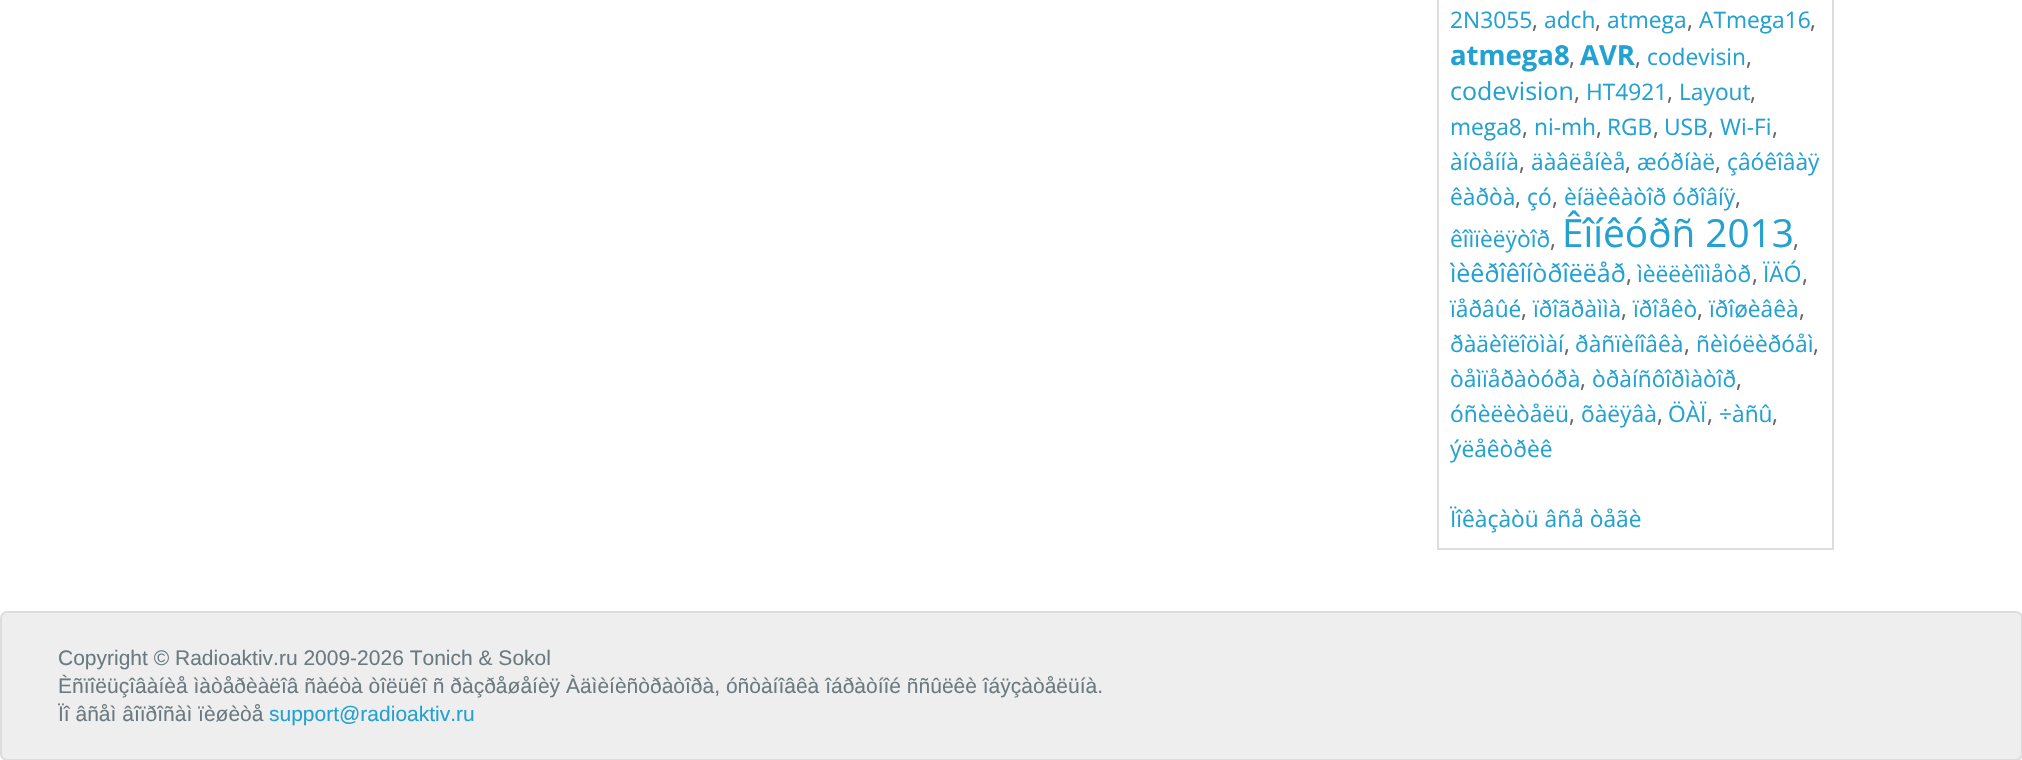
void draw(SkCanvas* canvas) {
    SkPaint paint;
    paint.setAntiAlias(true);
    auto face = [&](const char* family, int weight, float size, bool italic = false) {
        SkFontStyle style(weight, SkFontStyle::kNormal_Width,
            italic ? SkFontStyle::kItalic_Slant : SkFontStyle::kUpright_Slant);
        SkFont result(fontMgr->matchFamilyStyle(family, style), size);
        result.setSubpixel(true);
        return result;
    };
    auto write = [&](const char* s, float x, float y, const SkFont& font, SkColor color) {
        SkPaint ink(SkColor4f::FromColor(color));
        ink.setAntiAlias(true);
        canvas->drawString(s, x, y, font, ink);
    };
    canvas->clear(SK_ColorWHITE);
    paint.setStyle(SkPaint::kStroke_Style);
    paint.setStrokeWidth(2);
    paint.setColor(SkColorSetRGB(221, 221, 221));
    canvas->drawRect(SkRect::MakeXYWH(1438, -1, 395, 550), paint);
    auto kFont1 = face("Open Sans", 400, 22.75f);
    write("2N3055", 1450, 28, kFont1, SkColorSetRGB(35, 161, 209));
    write(",", 1532, 28, kFont1, SkColorSetRGB(102, 102, 102));
    write("adch", 1544, 28, kFont1, SkColorSetRGB(35, 161, 209));
    write(",", 1595, 28, kFont1, SkColorSetRGB(102, 102, 102));
    write("atmega", 1607, 28, kFont1, SkColorSetRGB(35, 161, 209));
    write(",", 1687, 28, kFont1, SkColorSetRGB(102, 102, 102));
    write("ATmega16", 1699, 28, kFont1, SkColorSetRGB(35, 161, 209));
    write(",", 1810, 28, kFont1, SkColorSetRGB(102, 102, 102));
    auto kFont2 = face("Open Sans", 700, 27.5f);
    write("atmega8", 1450, 65, kFont2, SkColorSetRGB(35, 161, 209));
    write(",", 1569, 65, kFont1, SkColorSetRGB(102, 102, 102));
    write("AVR", 1580, 65, kFont2, SkColorSetRGB(35, 161, 209));
    write(",", 1635, 65, kFont1, SkColorSetRGB(102, 102, 102));
    write("codevisin", 1647, 65, kFont1, SkColorSetRGB(35, 161, 209));
    write(",", 1746, 65, kFont1, SkColorSetRGB(102, 102, 102));
    auto kFont3 = face("Open Sans", 400, 25);
    write("codevision", 1450, 100, kFont3, SkColorSetRGB(35, 161, 209));
    write(",", 1574, 100, kFont1, SkColorSetRGB(102, 102, 102));
    write("HT4921", 1586, 100, kFont1, SkColorSetRGB(35, 161, 209));
    write(",", 1667, 100, kFont1, SkColorSetRGB(102, 102, 102));
    write("Layout", 1679, 100, kFont1, SkColorSetRGB(35, 161, 209));
    write(",", 1750, 100, kFont1, SkColorSetRGB(102, 102, 102));
    write("mega8", 1450, 135, kFont1, SkColorSetRGB(35, 161, 209));
    write(",", 1522, 135, kFont1, SkColorSetRGB(102, 102, 102));
    write("ni-mh", 1534, 135, kFont1, SkColorSetRGB(35, 161, 209));
    write(",", 1596, 135, kFont1, SkColorSetRGB(102, 102, 102));
    write("RGB", 1607, 135, kFont1, SkColorSetRGB(35, 161, 209));
    write(",", 1653, 135, kFont1, SkColorSetRGB(102, 102, 102));
    write("USB", 1664, 135, kFont1, SkColorSetRGB(35, 161, 209));
    write(",", 1708, 135, kFont1, SkColorSetRGB(102, 102, 102));
    write("Wi-Fi", 1720, 135, kFont1, SkColorSetRGB(35, 161, 209));
    write(",", 1772, 135, kFont1, SkColorSetRGB(102, 102, 102));
    write("àíòåííà", 1450, 170, kFont1, SkColorSetRGB(35, 161, 209));
    write(",", 1519, 170, kFont1, SkColorSetRGB(102, 102, 102));
    write("äàâëåíèå", 1531, 170, kFont1, SkColorSetRGB(35, 161, 209));
    write(",", 1625, 170, kFont1, SkColorSetRGB(102, 102, 102));
    write("æóðíàë", 1637, 170, kFont1, SkColorSetRGB(35, 161, 209));
    write(",", 1715, 170, kFont1, SkColorSetRGB(102, 102, 102));
    write("çâóêîâàÿ", 1727, 170, kFont1, SkColorSetRGB(35, 161, 209));
    write("êàðòà", 1450, 205, kFont1, SkColorSetRGB(35, 161, 209));
    write(",", 1515, 205, kFont1, SkColorSetRGB(102, 102, 102));
    write("çó", 1527, 205, kFont1, SkColorSetRGB(35, 161, 209));
    write(",", 1552, 205, kFont1, SkColorSetRGB(102, 102, 102));
    write("èíäèêàòîð óðîâíÿ", 1564, 205, kFont1, SkColorSetRGB(35, 161, 209));
    write(",", 1735, 205, kFont1, SkColorSetRGB(102, 102, 102));
    write("êîìïèëÿòîð", 1450, 247, kFont1, SkColorSetRGB(35, 161, 209));
    write(",", 1550, 247, kFont1, SkColorSetRGB(102, 102, 102));
    auto kFont4 = face("Open Sans", 400, 38.75f);
    write("Êîíêóðñ 2013", 1562, 247, kFont4, SkColorSetRGB(35, 161, 209));
    write(",", 1793, 247, kFont1, SkColorSetRGB(102, 102, 102));
    write("ìèêðîêîíòðîëëåð", 1450, 282, kFont3, SkColorSetRGB(35, 161, 209));
    write(",", 1626, 282, kFont1, SkColorSetRGB(102, 102, 102));
    write("ìèëëèîììåòð", 1637, 282, kFont1, SkColorSetRGB(35, 161, 209));
    write(",", 1752, 282, kFont1, SkColorSetRGB(102, 102, 102));
    write("ÏÄÓ", 1763, 282, kFont1, SkColorSetRGB(35, 161, 209));
    write(",", 1802, 282, kFont1, SkColorSetRGB(102, 102, 102));
    write("ïåðâûé", 1450, 317, kFont1, SkColorSetRGB(35, 161, 209));
    write(",", 1521, 317, kFont1, SkColorSetRGB(102, 102, 102));
    write("ïðîãðàììà", 1533, 317, kFont1, SkColorSetRGB(35, 161, 209));
    write(",", 1621, 317, kFont1, SkColorSetRGB(102, 102, 102));
    write("ïðîåêò", 1633, 317, kFont1, SkColorSetRGB(35, 161, 209));
    write(",", 1697, 317, kFont1, SkColorSetRGB(102, 102, 102));
    write("ïðîøèâêà", 1709, 317, kFont1, SkColorSetRGB(35, 161, 209));
    write(",", 1799, 317, kFont1, SkColorSetRGB(102, 102, 102));
    write("ðàäèîëîöìàí", 1450, 352, kFont1, SkColorSetRGB(35, 161, 209));
    write(",", 1564, 352, kFont1, SkColorSetRGB(102, 102, 102));
    write("ðàñïèíîâêà", 1575, 352, kFont1, SkColorSetRGB(35, 161, 209));
    write(",", 1684, 352, kFont1, SkColorSetRGB(102, 102, 102));
    write("ñèìóëèðóåì", 1696, 352, kFont1, SkColorSetRGB(35, 161, 209));
    write(",", 1813, 352, kFont1, SkColorSetRGB(102, 102, 102));
    write("òåìïåðàòóðà", 1450, 387, kFont1, SkColorSetRGB(35, 161, 209));
    write(",", 1580, 387, kFont1, SkColorSetRGB(102, 102, 102));
    write("òðàíñôîðìàòîð", 1592, 387, kFont1, SkColorSetRGB(35, 161, 209));
    write(",", 1736, 387, kFont1, SkColorSetRGB(102, 102, 102));
    write("óñèëèòåëü", 1450, 422, kFont1, SkColorSetRGB(35, 161, 209));
    write(",", 1569, 422, kFont1, SkColorSetRGB(102, 102, 102));
    write("õàëÿâà", 1581, 422, kFont1, SkColorSetRGB(35, 161, 209));
    write(",", 1657, 422, kFont1, SkColorSetRGB(102, 102, 102));
    write("ÖÀÏ", 1668, 422, kFont1, SkColorSetRGB(35, 161, 209));
    write(",", 1707, 422, kFont1, SkColorSetRGB(102, 102, 102));
    write("÷àñû", 1719, 422, kFont1, SkColorSetRGB(35, 161, 209));
    write(",", 1772, 422, kFont1, SkColorSetRGB(102, 102, 102));
    write("ýëåêòðèê", 1450, 457, kFont1, SkColorSetRGB(35, 161, 209));
    write("Ïîêàçàòü âñå òåãè", 1450, 527, kFont1, SkColorSetRGB(35, 161, 209));
    paint.setStyle(SkPaint::kFill_Style);
    paint.setColor(SkColorSetRGB(238, 238, 238));
    canvas->drawRoundRect(SkRect::MakeXYWH(1, 612, 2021, 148), 6, 6, paint);
    paint.setStyle(SkPaint::kStroke_Style);
    paint.setColor(SkColorSetRGB(221, 221, 221));
    canvas->drawRoundRect(SkRect::MakeXYWH(1, 612, 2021, 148), 6, 6, paint);
    auto kFont5 = face("Liberation Sans", 400, 21);
    write("Copyright © Radioaktiv.ru 2009-2026 Tonich & Sokol", 58, 665, kFont5, SkColorSetRGB(107, 122, 129));
    write("Èñïîëüçîâàíèå ìàòåðèàëîâ ñàéòà òîëüêî ñ ðàçðåøåíèÿ Àäìèíèñòðàòîðà, óñòàíîâêà îáðàòíîé ññûëêè îáÿçàòåëüíà.", 58, 693, kFont5, SkColorSetRGB(107, 122, 129));
    write("Ïî âñåì âîïðîñàì ïèøèòå", 58, 721, kFont5, SkColorSetRGB(107, 122, 129));
    write("support@radioaktiv.ru", 269, 721, kFont5, SkColorSetRGB(35, 161, 209));
}
